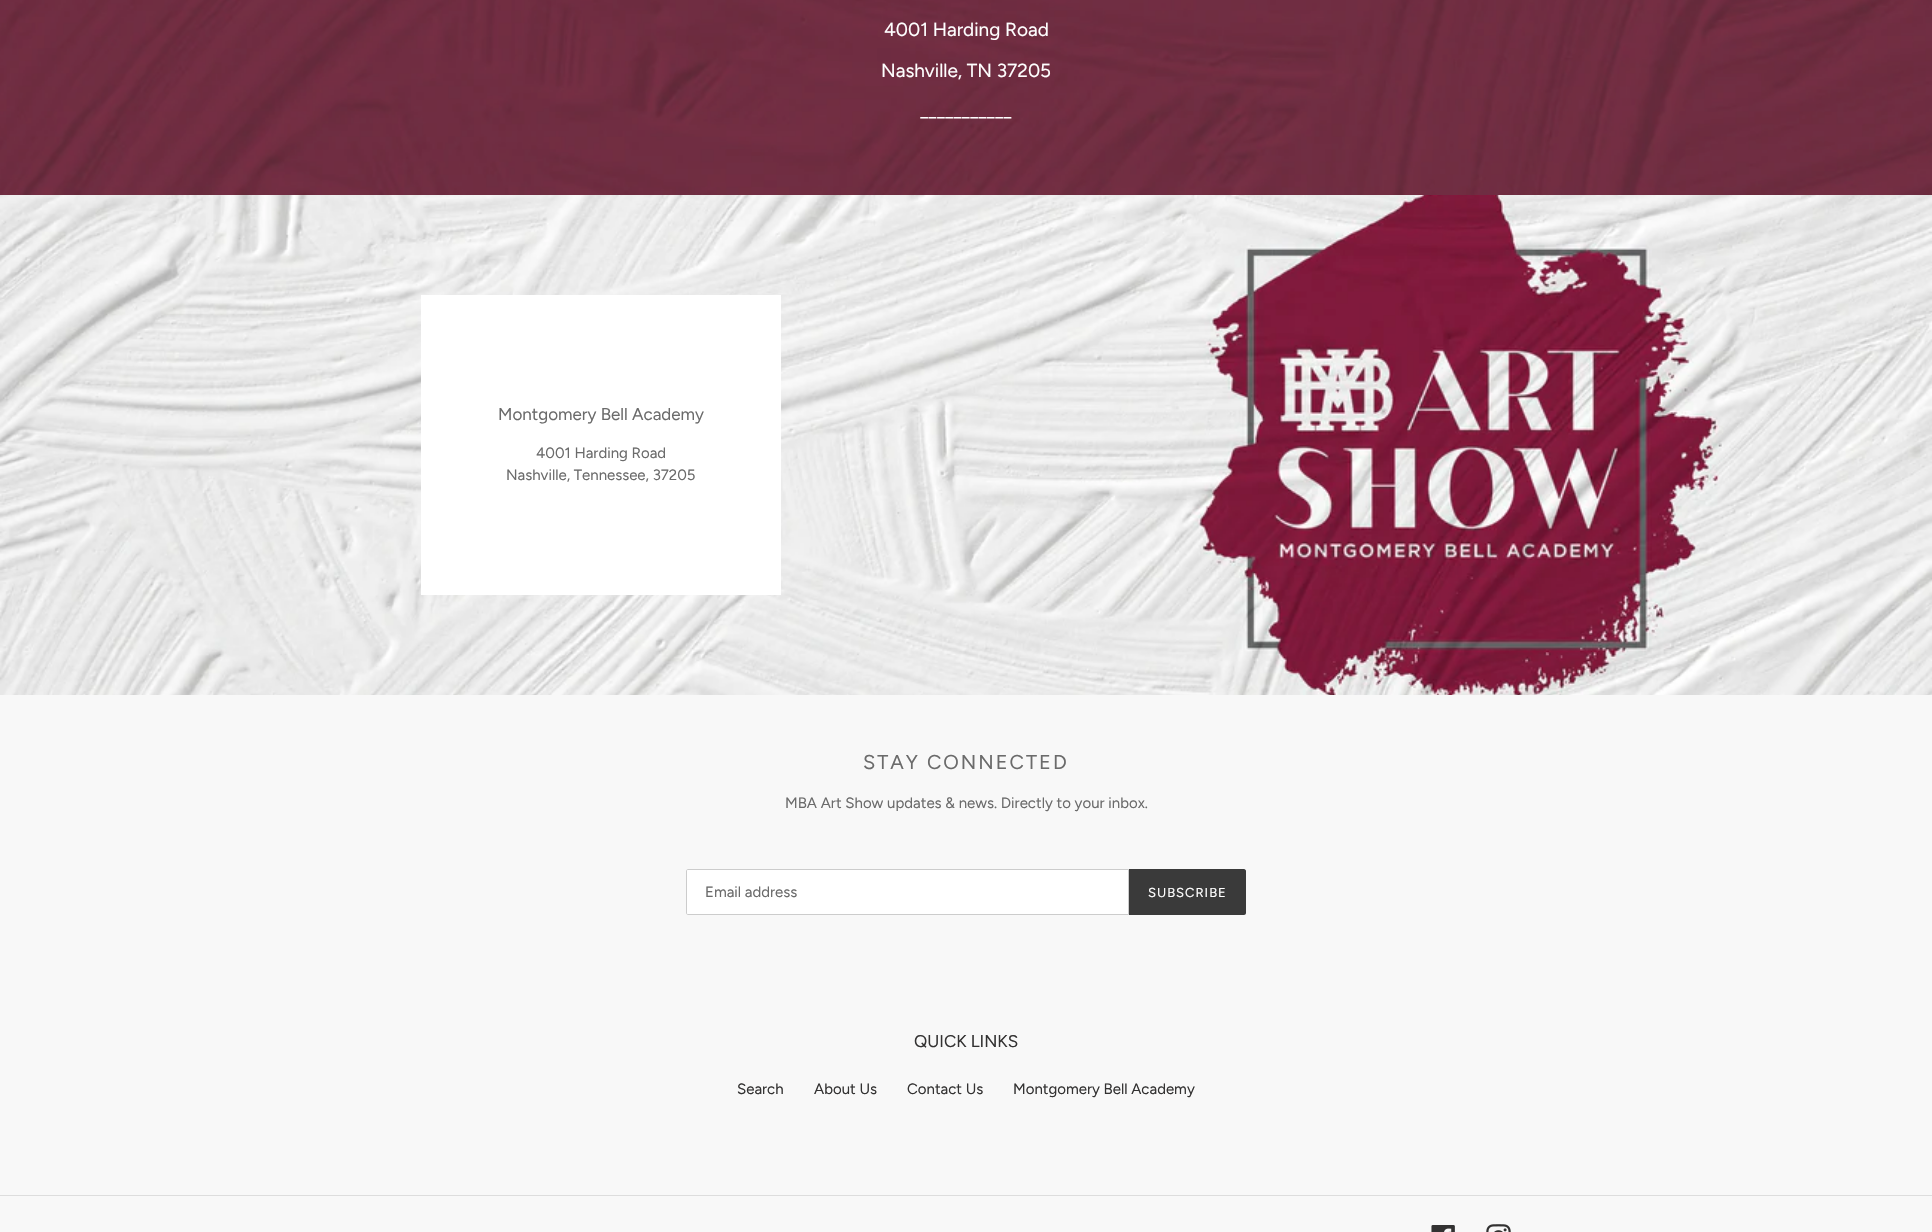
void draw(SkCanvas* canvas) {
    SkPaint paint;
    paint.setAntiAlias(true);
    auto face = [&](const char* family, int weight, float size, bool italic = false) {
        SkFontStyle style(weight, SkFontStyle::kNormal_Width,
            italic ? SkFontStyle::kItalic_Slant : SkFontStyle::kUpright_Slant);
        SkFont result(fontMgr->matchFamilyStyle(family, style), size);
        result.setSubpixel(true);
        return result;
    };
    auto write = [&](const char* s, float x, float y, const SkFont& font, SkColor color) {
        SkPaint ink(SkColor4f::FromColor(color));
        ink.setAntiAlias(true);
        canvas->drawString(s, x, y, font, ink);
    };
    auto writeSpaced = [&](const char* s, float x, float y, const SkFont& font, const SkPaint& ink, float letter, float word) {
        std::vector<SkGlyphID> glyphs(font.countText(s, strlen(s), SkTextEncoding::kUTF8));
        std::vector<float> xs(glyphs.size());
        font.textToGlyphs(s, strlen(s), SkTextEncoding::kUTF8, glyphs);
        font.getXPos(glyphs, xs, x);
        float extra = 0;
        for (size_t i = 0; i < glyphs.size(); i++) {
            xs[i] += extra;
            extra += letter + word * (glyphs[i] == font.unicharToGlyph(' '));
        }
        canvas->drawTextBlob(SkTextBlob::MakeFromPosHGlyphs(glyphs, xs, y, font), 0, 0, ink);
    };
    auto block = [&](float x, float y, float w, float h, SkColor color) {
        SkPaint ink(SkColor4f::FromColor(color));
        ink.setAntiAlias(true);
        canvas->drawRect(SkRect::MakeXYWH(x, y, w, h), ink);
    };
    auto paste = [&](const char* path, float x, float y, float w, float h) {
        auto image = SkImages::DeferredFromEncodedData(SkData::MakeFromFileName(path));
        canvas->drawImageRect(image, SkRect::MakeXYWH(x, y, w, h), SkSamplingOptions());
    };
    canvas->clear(SkColorSetRGB(248, 248, 248));
    paste("pic1.png", 0, 0, 1932, 195);
    auto kFont1 = face("Figtree", 400, 19);
    write("4001 Harding Road", 884, 36, kFont1, SK_ColorWHITE);
    write("Nashville, TN 37205", 881, 77, kFont1, SK_ColorWHITE);
    write("___________", 920, 117, kFont1, SK_ColorWHITE);
    paste("pic2.png", 0, 195, 1932, 500);
    block(421, 295, 360, 300, SK_ColorWHITE);
    auto kFont2 = face("Figtree", 400, 17);
    write("Montgomery Bell Academy", 498, 420, kFont2, SkColorSetRGB(107, 107, 107));
    auto kFont3 = face("Figtree", 400, 15);
    write("4001 Harding Road", 536, 458, kFont3, SkColorSetRGB(107, 107, 107));
    write("Nashville, Tennessee, 37205", 506, 480, kFont3, SkColorSetRGB(107, 107, 107));
    auto kFont4 = face("Figtree", 400, 20);
    paint.setColor(SkColorSetRGB(107, 107, 107));
    writeSpaced("STAY CONNECTED", 863, 769, kFont4, paint, 2, 0);
    write("MBA Art Show updates & news. Directly to your inbox.", 785, 808, kFont3, SkColorSetRGB(107, 107, 107));
    paint.setColor(SK_ColorWHITE);
    canvas->drawPath(SkPathBuilder().moveTo(688, 869.5f).lineTo(1128.5f, 869.5f).lineTo(1128.5f, 914.5f).lineTo(688, 914.5f).cubicTo(687, 914.5f, 686.5f, 914, 686.5f, 913).lineTo(686.5f, 871).cubicTo(686.5f, 870, 687, 869.5f, 688, 869.5f).close().detach(), paint);
    paint.setStyle(SkPaint::kStroke_Style);
    paint.setStrokeWidth(1);
    paint.setColor(SkColorSetRGB(204, 204, 204));
    canvas->drawPath(SkPathBuilder().moveTo(688, 869.5f).lineTo(1128.5f, 869.5f).lineTo(1128.5f, 914.5f).lineTo(688, 914.5f).cubicTo(687, 914.5f, 686.5f, 914, 686.5f, 913).lineTo(686.5f, 871).cubicTo(686.5f, 870, 687, 869.5f, 688, 869.5f).close().detach(), paint);
    write("Email address", 705, 897, kFont3, SkColorSetRGB(107, 107, 107));
    paint.setStyle(SkPaint::kFill_Style);
    paint.setColor(SkColorSetRGB(58, 58, 58));
    canvas->drawPath(SkPathBuilder().moveTo(1129, 869).lineTo(1244, 869).cubicTo(1245, 869, 1246, 870, 1246, 871).lineTo(1246, 913).cubicTo(1246, 914, 1245, 915, 1244, 915).lineTo(1129, 915).close().detach(), paint);
    auto kFont5 = face("Figtree", 400, 13);
    paint.setColor(SK_ColorWHITE);
    writeSpaced("SUBSCRIBE", 1148, 897, kFont5, paint, 1, 0);
    write("QUICK LINKS", 914, 1047, kFont2, SkColorSetRGB(51, 50, 50));
    write("Search", 737, 1094, kFont3, SkColorSetRGB(51, 50, 50));
    write("About Us", 814, 1094, kFont3, SkColorSetRGB(51, 50, 50));
    write("Contact Us", 907, 1094, kFont3, SkColorSetRGB(51, 50, 50));
    write("Montgomery Bell Academy", 1013, 1094, kFont3, SkColorSetRGB(51, 50, 50));
    block(0, 1195, 1932, 1, SkColorSetRGB(221, 221, 221));
    paste("pic3.png", 1431, 1225, 24, 7);
    paste("pic4.png", 1486, 1224, 25, 8);
}
